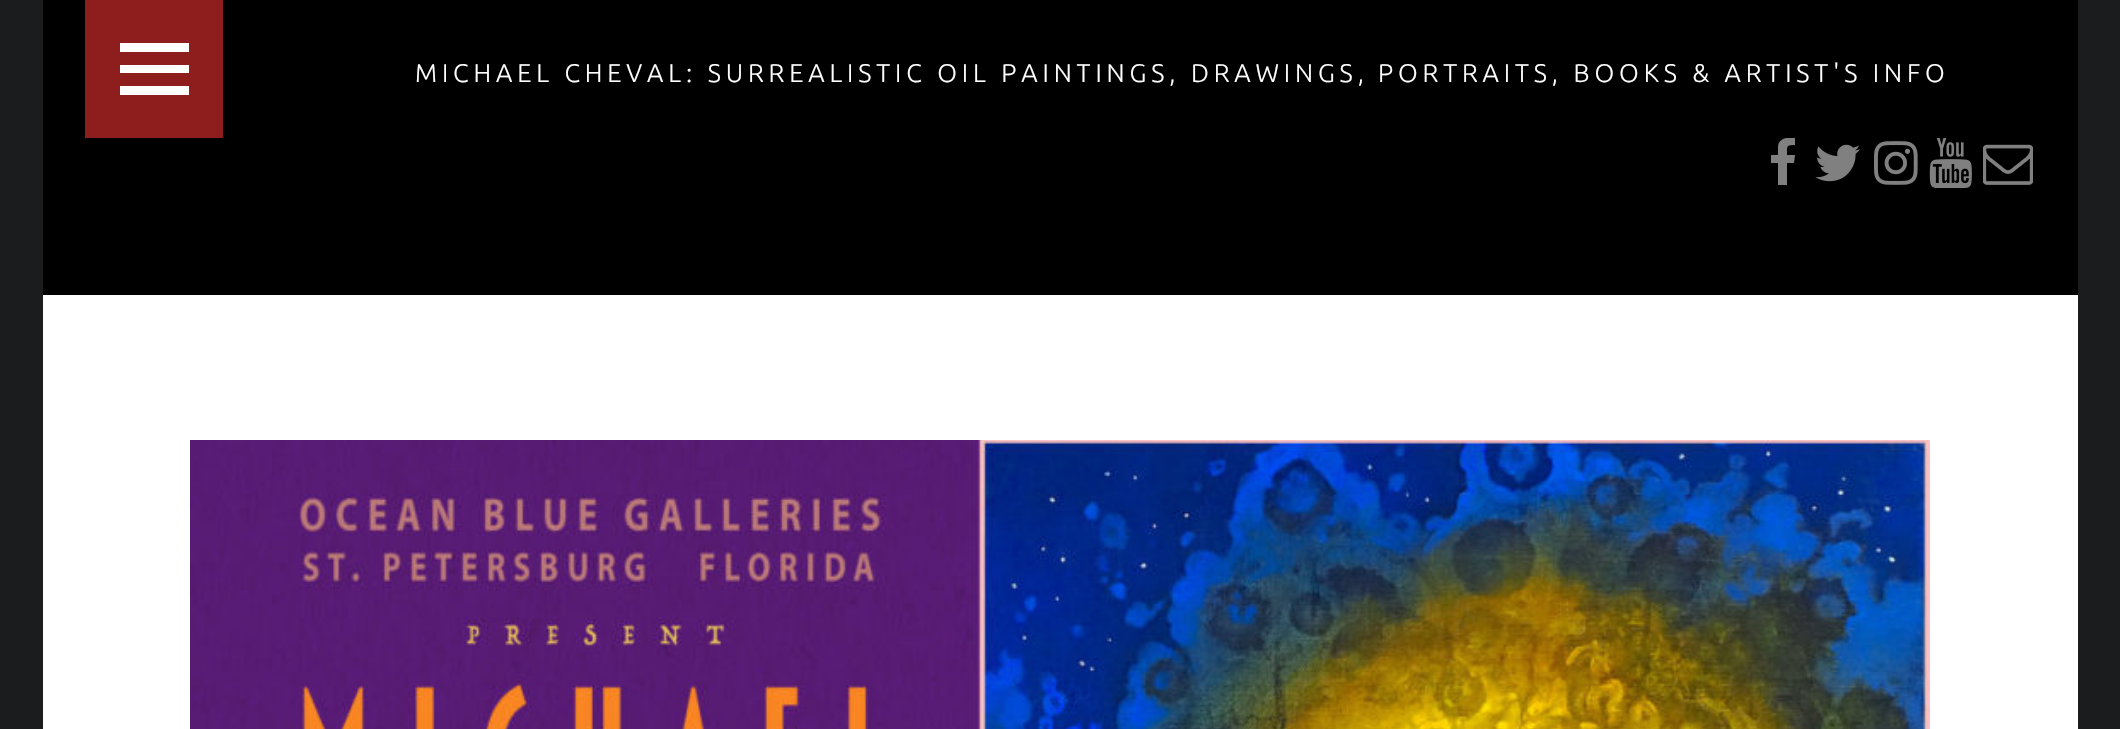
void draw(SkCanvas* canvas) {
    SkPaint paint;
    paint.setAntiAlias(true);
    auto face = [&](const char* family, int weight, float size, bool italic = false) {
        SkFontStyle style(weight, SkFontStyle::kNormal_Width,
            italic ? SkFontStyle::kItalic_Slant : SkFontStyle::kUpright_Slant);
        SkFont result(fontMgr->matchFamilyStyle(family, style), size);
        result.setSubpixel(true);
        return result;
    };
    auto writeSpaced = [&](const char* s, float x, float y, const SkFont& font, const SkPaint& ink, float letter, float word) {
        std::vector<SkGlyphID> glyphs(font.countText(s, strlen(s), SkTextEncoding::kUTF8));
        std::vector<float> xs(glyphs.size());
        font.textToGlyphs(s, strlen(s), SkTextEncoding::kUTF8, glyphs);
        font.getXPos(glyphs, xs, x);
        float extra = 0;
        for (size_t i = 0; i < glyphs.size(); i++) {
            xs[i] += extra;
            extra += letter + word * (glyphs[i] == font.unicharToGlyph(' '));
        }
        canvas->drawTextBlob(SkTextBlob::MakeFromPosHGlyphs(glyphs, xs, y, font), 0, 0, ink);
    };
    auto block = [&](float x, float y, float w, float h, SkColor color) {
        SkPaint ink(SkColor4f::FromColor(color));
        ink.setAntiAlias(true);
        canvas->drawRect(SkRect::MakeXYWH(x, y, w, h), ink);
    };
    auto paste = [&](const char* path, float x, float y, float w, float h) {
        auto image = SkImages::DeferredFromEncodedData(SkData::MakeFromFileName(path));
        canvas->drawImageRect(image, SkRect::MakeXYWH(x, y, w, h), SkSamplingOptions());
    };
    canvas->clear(SkColorSetRGB(26, 28, 30));
    block(43, 295, 2035, 434, SK_ColorWHITE);
    block(43, 0, 2035, 295, SK_ColorBLACK);
    block(85, 0, 138, 138, SkColorSetRGB(142, 29, 29));
    paint.setColor(SK_ColorWHITE);
    canvas->drawPath(SkPathBuilder().moveTo(120, 95).lineTo(120, 86).lineTo(189, 86).lineTo(189, 95).close().moveTo(120, 43).lineTo(189, 43).lineTo(189, 52).lineTo(120, 52).close().moveTo(120, 73).lineTo(120, 65).lineTo(189, 65).lineTo(189, 73).close().detach(), paint);
    auto kFont1 = face("Ubuntu", 300, 25.5f);
    writeSpaced("MICHAEL CHEVAL: SURREALISTIC OIL PAINTINGS, DRAWINGS,", 415, 82, kFont1, paint, 4.85f, 0);
    writeSpaced("PORTRAITS, BOOKS & ARTIST'S INFO", 1378, 82, kFont1, paint, 4.85f, 0);
    canvas->save();
    canvas->clipRect(SkRect::MakeXYWH(1758, 138, 50, 50));
    paint.setColor(SkColorSetRGB(128, 128, 128));
    canvas->drawPath(SkPathBuilder().moveTo(1795, 138).lineTo(1795, 145).cubicTo(1786, 145, 1787, 146, 1787, 155).lineTo(1795, 155).lineTo(1794, 163).lineTo(1787, 163).lineTo(1787, 185).lineTo(1778, 185).lineTo(1778, 163).lineTo(1771, 163).lineTo(1771, 155).lineTo(1778, 155).lineTo(1778, 146).cubicTo(1779, 138, 1788, 137, 1795, 138).close().detach(), paint);
    canvas->restore();
    paste("pic1.png", 1815, 144, 45, 38);
    paste("pic2.png", 1874, 141, 44, 44);
    paste("pic3.png", 1929, 138, 43, 50);
    paste("pic4.png", 1983, 144, 50, 41);
    paste("pic5.png", 190, 440, 1740, 289);
}
